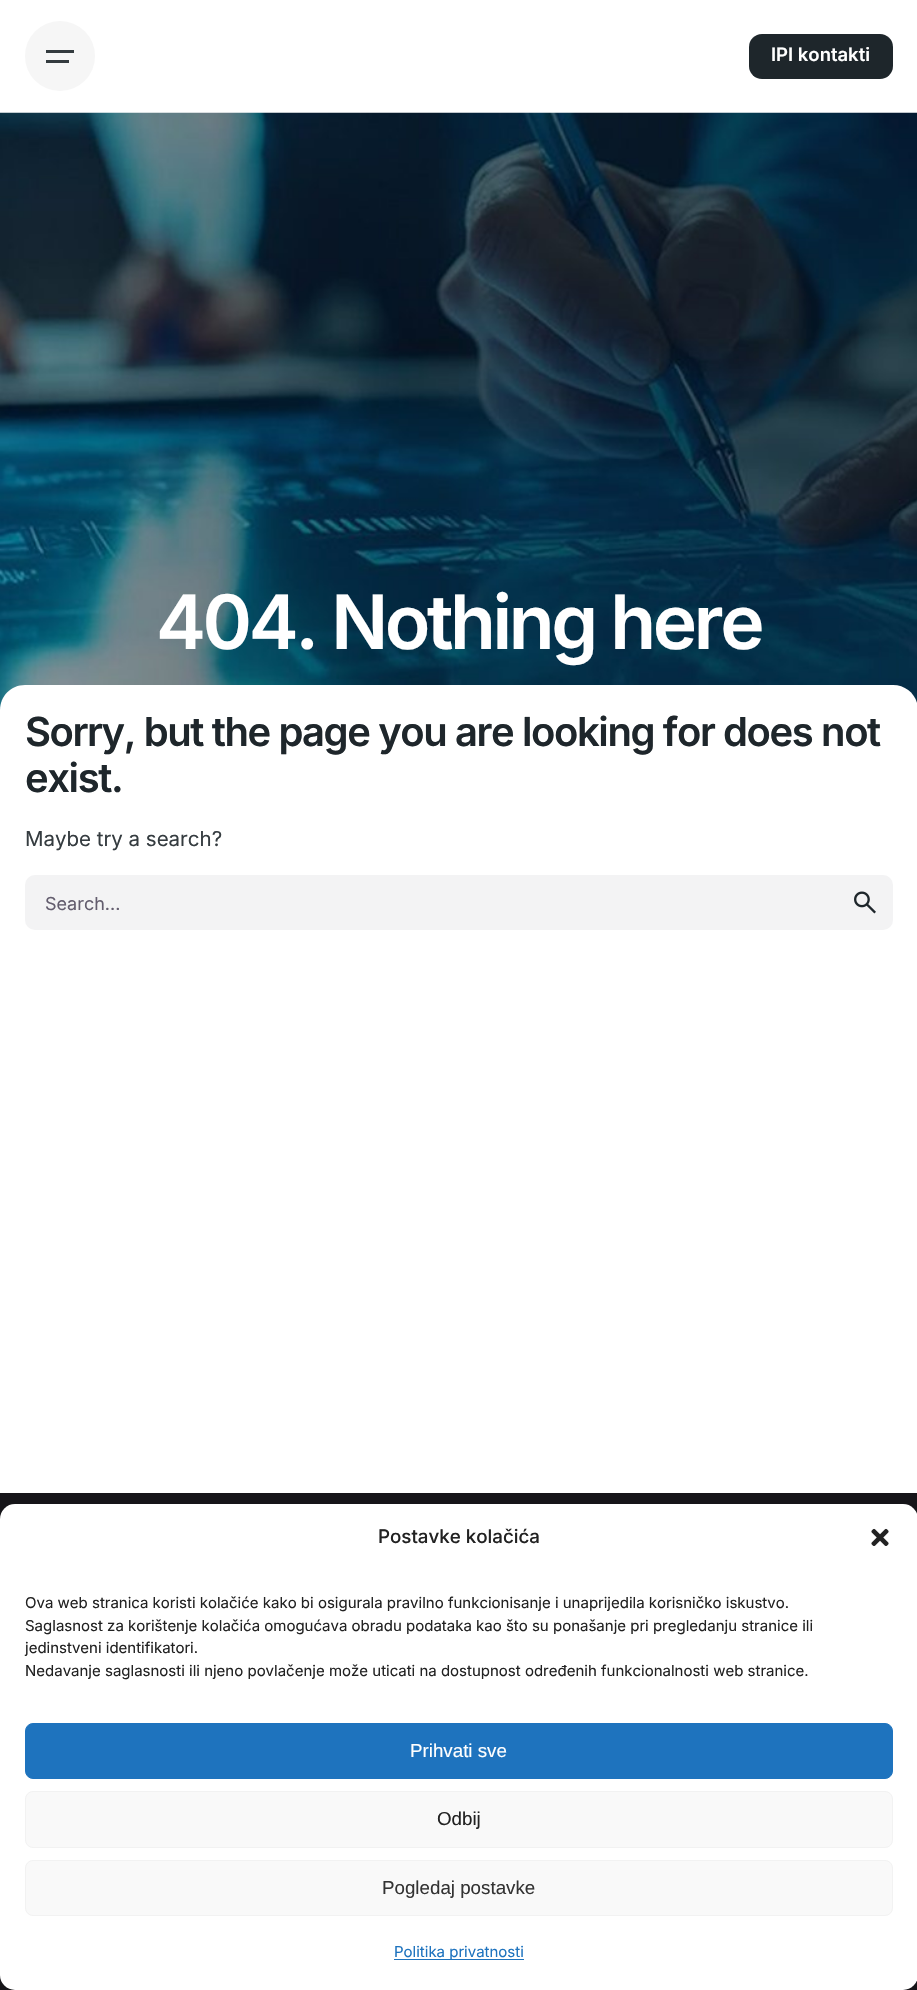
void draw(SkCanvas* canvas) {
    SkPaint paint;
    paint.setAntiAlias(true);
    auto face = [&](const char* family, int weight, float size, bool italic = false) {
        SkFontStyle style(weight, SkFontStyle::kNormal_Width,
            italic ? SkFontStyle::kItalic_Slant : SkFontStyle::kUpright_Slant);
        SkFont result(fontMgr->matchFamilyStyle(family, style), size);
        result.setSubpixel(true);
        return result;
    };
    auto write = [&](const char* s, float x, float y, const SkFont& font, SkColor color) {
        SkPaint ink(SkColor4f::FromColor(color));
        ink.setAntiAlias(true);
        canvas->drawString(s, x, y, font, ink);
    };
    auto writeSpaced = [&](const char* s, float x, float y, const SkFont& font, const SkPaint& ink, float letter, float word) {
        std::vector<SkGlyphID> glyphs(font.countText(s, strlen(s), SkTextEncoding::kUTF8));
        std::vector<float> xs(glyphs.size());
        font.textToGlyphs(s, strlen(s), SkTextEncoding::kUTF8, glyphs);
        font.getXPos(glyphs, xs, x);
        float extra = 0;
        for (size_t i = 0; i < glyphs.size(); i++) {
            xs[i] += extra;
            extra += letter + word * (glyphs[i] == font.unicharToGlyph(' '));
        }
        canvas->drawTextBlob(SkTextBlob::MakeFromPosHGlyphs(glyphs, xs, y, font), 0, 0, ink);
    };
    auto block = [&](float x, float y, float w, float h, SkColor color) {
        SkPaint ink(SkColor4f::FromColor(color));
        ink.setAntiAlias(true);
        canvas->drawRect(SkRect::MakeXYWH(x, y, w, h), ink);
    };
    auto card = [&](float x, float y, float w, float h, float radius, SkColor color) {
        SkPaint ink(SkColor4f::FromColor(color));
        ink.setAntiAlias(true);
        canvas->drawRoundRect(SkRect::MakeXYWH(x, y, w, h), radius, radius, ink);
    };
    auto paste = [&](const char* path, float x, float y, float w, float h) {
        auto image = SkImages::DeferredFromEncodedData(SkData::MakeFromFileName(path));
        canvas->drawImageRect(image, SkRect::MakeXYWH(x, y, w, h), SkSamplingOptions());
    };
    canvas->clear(SK_ColorWHITE);
    paint.setColor(SkColorSetRGB(246, 246, 246));
    canvas->drawCircle(60, 56, 35, paint);
    block(46, 50, 28, 3, SkColorSetRGB(52, 59, 63));
    block(46, 60, 23, 3, SkColorSetRGB(52, 59, 63));
    card(749, 34, 144, 45, 13, SkColorSetRGB(30, 38, 43));
    auto kFont1 = face("Inter", 600, 18.5f);
    write("IPI kontakti", 771, 61, kFont1, SK_ColorWHITE);
    paste("pic1.png", 0, 112, 917, 598);
    auto kFont2 = face("Inter", 600, 75);
    paint.setColor(SK_ColorWHITE);
    writeSpaced("404. Nothing here", 156, 649, kFont2, paint, -3.4f, 0);
    canvas->drawPath(SkPathBuilder().moveTo(25, 685).lineTo(893, 685).cubicTo(907, 685, 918, 696, 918, 710).lineTo(0, 710).cubicTo(0, 696, 11, 685, 25, 685).close().detach(), paint);
    auto kFont3 = face("Inter", 600, 40);
    paint.setColor(SkColorSetRGB(30, 38, 43));
    writeSpaced("Sorry, but the page you are looking for does not", 25, 746, kFont3, paint, -1.4f, 0);
    writeSpaced("exist.", 25, 792, kFont3, paint, -1.4f, 0);
    auto kFont4 = face("Inter", 400, 20.5f);
    write("Maybe try a search?", 25, 846, kFont4, SkColorSetRGB(53, 60, 64));
    card(25, 875, 868, 55, 10, SkColorSetRGB(243, 243, 244));
    auto kFont5 = face("Inter", 400, 18);
    write("Search...", 45, 910, kFont5, SkColorSetRGB(99, 93, 110));
    paste("pic2.png", 854, 891, 22, 23);
    block(0, 1493, 917, 497, SkColorSetRGB(22, 21, 25));
    card(0, 1504, 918, 486, 15, SK_ColorWHITE);
    auto kFont6 = face("Inter", 500, 18.75f);
    write("Postavke kolačića", 378, 1543, kFont6, SkColorSetRGB(34, 34, 34));
    paste("pic3.png", 871, 1528, 18, 18);
    auto kFont7 = face("Inter", 400, 15);
    write("Ova web stranica koristi kolačiće kako bi osigurala pravilno funkcionisanje i unaprijedila korisničko iskustvo.", 25, 1608, kFont7, SkColorSetRGB(34, 34, 34));
    write("Saglasnost za korištenje kolačića omogućava obradu podataka kao što su ponašanje pri pregledanju stranice ili", 25, 1631, kFont7, SkColorSetRGB(34, 34, 34));
    write("jedinstveni identifikatori.", 25, 1653, kFont7, SkColorSetRGB(34, 34, 34));
    write("Nedavanje saglasnosti ili njeno povlačenje može uticati na dostupnost određenih funkcionalnosti web stranice.", 25, 1676, kFont7, SkColorSetRGB(34, 34, 34));
    paint.setColor(SkColorSetRGB(30, 115, 190));
    canvas->drawRoundRect(SkRect::MakeXYWH(25.5f, 1723.5f, 867, 55), 7.5f, 7.5f, paint);
    paint.setStyle(SkPaint::kStroke_Style);
    paint.setStrokeWidth(1);
    canvas->drawRoundRect(SkRect::MakeXYWH(25.5f, 1723.5f, 867, 55), 7.5f, 7.5f, paint);
    auto kFont8 = face("Liberation Sans", 400, 18.75f);
    write("Prihvati sve", 410, 1757, kFont8, SK_ColorWHITE);
    paint.setStyle(SkPaint::kFill_Style);
    paint.setColor(SkColorSetRGB(249, 249, 249));
    canvas->drawRoundRect(SkRect::MakeXYWH(25.5f, 1791.5f, 867, 56), 7.5f, 7.5f, paint);
    paint.setStyle(SkPaint::kStroke_Style);
    paint.setColor(SkColorSetRGB(242, 242, 242));
    canvas->drawRoundRect(SkRect::MakeXYWH(25.5f, 1791.5f, 867, 56), 7.5f, 7.5f, paint);
    write("Odbij", 437, 1825, kFont8, SkColorSetRGB(34, 34, 34));
    paint.setStyle(SkPaint::kFill_Style);
    paint.setColor(SkColorSetRGB(249, 249, 249));
    canvas->drawRoundRect(SkRect::MakeXYWH(25.5f, 1860.5f, 867, 55), 7.5f, 7.5f, paint);
    paint.setStyle(SkPaint::kStroke_Style);
    paint.setColor(SkColorSetRGB(242, 242, 242));
    canvas->drawRoundRect(SkRect::MakeXYWH(25.5f, 1860.5f, 867, 55), 7.5f, 7.5f, paint);
    write("Pogledaj postavke", 382, 1894, kFont8, SkColorSetRGB(51, 51, 51));
    block(394, 1959, 130, 1, SkColorSetRGB(30, 115, 190));
    write("Politika privatnosti", 394, 1957, kFont7, SkColorSetRGB(30, 115, 190));
}
